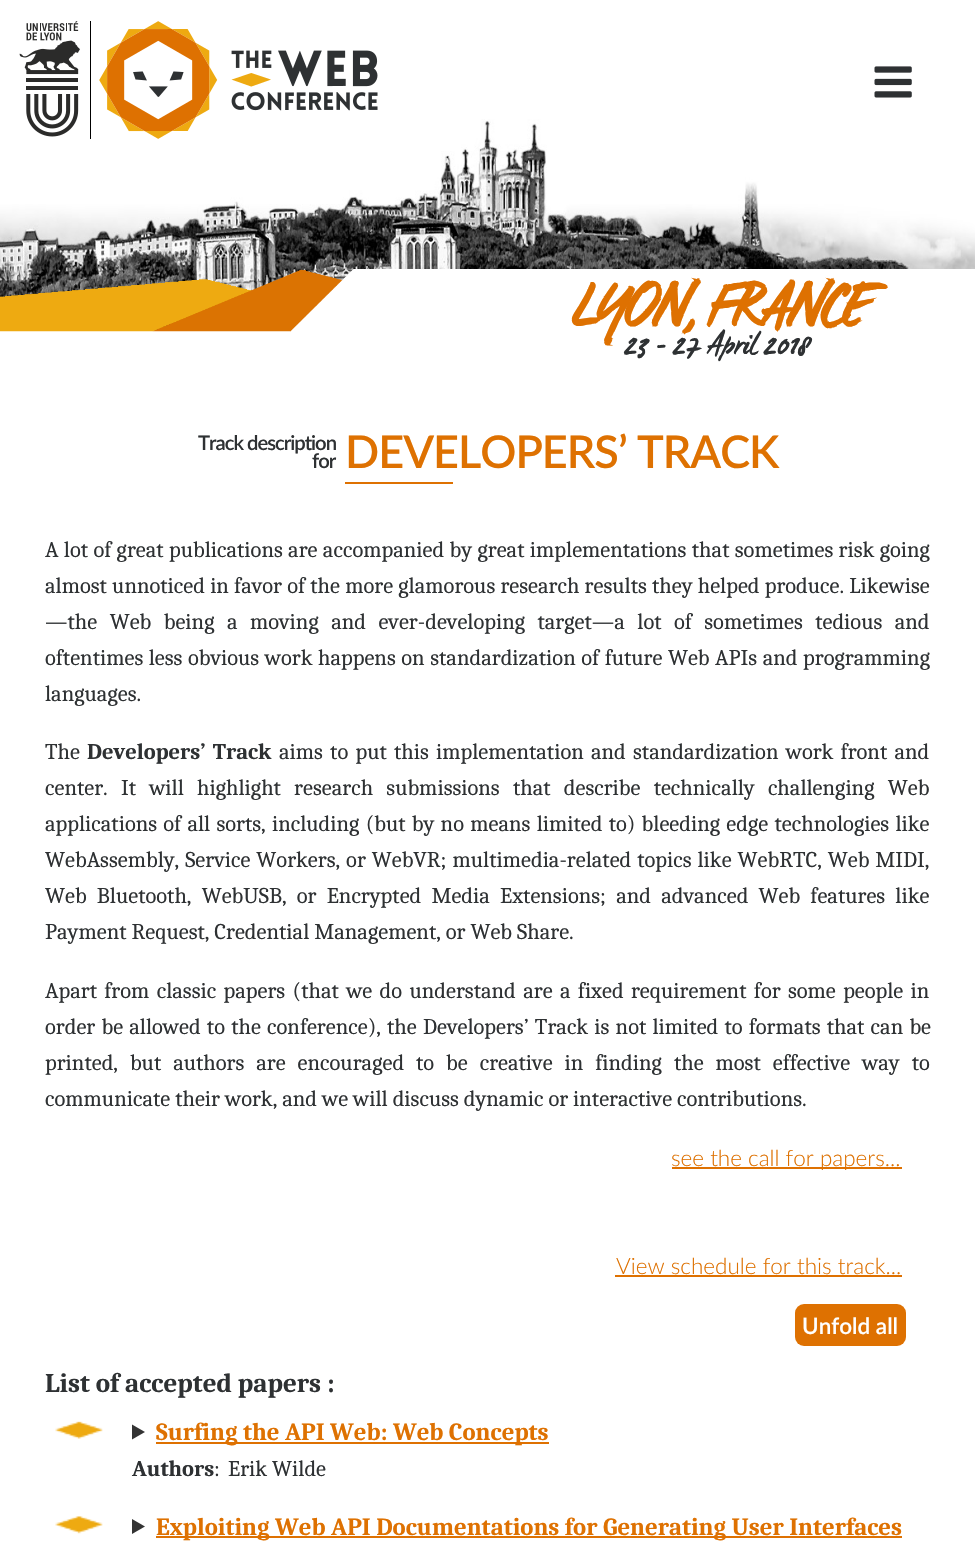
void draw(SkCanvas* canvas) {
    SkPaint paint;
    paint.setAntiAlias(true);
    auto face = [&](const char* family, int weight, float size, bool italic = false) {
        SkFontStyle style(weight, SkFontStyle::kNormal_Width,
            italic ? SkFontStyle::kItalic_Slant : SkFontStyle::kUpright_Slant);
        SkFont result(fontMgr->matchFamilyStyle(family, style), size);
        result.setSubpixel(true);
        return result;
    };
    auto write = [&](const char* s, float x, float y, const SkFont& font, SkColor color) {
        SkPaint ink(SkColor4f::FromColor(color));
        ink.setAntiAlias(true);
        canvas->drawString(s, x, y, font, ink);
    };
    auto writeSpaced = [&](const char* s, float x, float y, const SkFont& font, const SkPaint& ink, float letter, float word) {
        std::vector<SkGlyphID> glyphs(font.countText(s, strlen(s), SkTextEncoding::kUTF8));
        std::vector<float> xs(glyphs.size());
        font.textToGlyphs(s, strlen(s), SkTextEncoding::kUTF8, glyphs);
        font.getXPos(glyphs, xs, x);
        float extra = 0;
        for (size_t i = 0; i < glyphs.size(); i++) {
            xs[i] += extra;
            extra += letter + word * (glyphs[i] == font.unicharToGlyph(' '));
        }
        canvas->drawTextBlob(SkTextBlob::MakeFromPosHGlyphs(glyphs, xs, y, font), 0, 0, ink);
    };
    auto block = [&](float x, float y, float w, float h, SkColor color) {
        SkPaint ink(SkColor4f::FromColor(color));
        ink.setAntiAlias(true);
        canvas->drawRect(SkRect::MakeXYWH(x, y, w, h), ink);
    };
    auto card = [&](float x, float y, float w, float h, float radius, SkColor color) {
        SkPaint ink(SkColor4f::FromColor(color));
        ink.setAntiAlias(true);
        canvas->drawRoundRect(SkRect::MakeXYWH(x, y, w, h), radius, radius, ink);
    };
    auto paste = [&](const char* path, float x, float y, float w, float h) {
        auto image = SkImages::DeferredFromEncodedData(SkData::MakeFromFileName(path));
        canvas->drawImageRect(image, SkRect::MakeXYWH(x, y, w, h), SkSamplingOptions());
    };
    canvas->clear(SK_ColorWHITE);
    paste("pic2.png", 0, 119, 975, 211);
    paste("pic1.png", 0, 269, 354, 63);
    block(354, 269, 621, 61, SK_ColorWHITE);
    paste("pic3.png", 19, 21, 359, 118);
    paste("pic4.png", 874, 66, 38, 32);
    auto kFont1 = face("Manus", 700, 60, true);
    write("LYON, FRANCE", 570, 326, kFont1, SkColorSetRGB(222, 113, 1));
    auto kFont2 = face("Manus", 400, 33, true);
    write("23 - 27 April 2018", 623, 354, kFont2, SkColorSetRGB(46, 49, 51));
    auto kFont3 = face("Lato", 600, 20.25f);
    paint.setColor(SkColorSetRGB(46, 49, 51));
    writeSpaced("Track description", 198, 450, kFont3, paint, -1, 0);
    writeSpaced("for", 312, 468, kFont3, paint, -1, 0);
    auto kFont4 = face("Lato", 600, 45);
    paint.setColor(SkColorSetRGB(222, 113, 1));
    writeSpaced("DEVELOPERS’ TRACK", 345, 468, kFont4, paint, -1, 0);
    block(345, 482, 108, 2, SkColorSetRGB(222, 113, 1));
    auto kFont5 = face("Caladea", 400, 22.5f);
    paint.setColor(SkColorSetRGB(46, 49, 51));
    writeSpaced("A lot of great publications are accompanied by great implementations that sometimes risk going", 45, 557, kFont5, paint, 0, 0.4f);
    writeSpaced("almost unnoticed in favor of the more glamorous research results they helped produce. Likewise", 45, 593, kFont5, paint, 0, 0.25f);
    writeSpaced("—the Web being a moving and ever-developing target—a lot of sometimes tedious and", 45, 629, kFont5, paint, 0, 7.5f);
    writeSpaced("oftentimes less obvious work happens on standardization of future Web APIs and programming", 45, 665, kFont5, paint, 0, 0.6f);
    write("languages.", 45, 701, kFont5, SkColorSetRGB(46, 49, 51));
    write("The", 45, 759, kFont5, SkColorSetRGB(46, 49, 51));
    auto kFont6 = face("Caladea", 700, 22.5f);
    writeSpaced("Developers’ Track", 87, 759, kFont6, paint, 0, 2.25f);
    writeSpaced("aims to put this implementation and standardization work front and", 279, 759, kFont5, paint, 0, 2.25f);
    writeSpaced("center. It will highlight research submissions that describe technically challenging Web", 45, 795, kFont5, paint, 0, 8.25f);
    writeSpaced("applications of all sorts, including (but by no means limited to) bleeding edge technologies like", 45, 831, kFont5, paint, 0, 1.3f);
    writeSpaced("WebAssembly, Service Workers, or WebVR; multimedia-related topics like WebRTC, Web MIDI,", 45, 867, kFont5, paint, 0, 1);
    writeSpaced("Web Bluetooth, WebUSB, or Encrypted Media Extensions; and advanced Web features like", 45, 903, kFont5, paint, 0, 5.25f);
    write("Payment Request, Credential Management, or Web Share.", 45, 939, kFont5, SkColorSetRGB(46, 49, 51));
    writeSpaced("Apart from classic papers (that we do understand are a fixed requirement for some people in", 45, 998, kFont5, paint, 0, 2.4f);
    writeSpaced("order be allowed to the conference), the Developers’ Track is not limited to formats that can be", 45, 1034, kFont5, paint, 0, 1.25f);
    writeSpaced("printed, but authors are encouraged to be creative in finding the most effective way to", 45, 1070, kFont5, paint, 0, 7);
    write("communicate their work, and we will discuss dynamic or interactive contributions.", 45, 1106, kFont5, SkColorSetRGB(46, 49, 51));
    block(672, 1167, 230, 2, SkColorSetRGB(222, 113, 1));
    auto kFont7 = face("Lato", 300, 22.5f);
    write("see the call for papers...", 671, 1166, kFont7, SkColorSetRGB(222, 113, 1));
    write("View schedule for this track...", 616, 1274, kFont7, SkColorSetRGB(222, 113, 1));
    block(615, 1275, 287, 2, SkColorSetRGB(222, 113, 1));
    card(795, 1304, 111, 42, 9, SkColorSetRGB(222, 113, 1));
    auto kFont8 = face("Lato", 600, 22.5f);
    write("Unfold all", 802, 1334, kFont8, SK_ColorWHITE);
    auto kFont9 = face("Caladea", 700, 27);
    write("List of accepted papers :", 45, 1392, kFont9, SkColorSetRGB(46, 49, 51));
    paste("pic5.png", 55, 1421, 48, 18);
    paint.setColor(SkColorSetRGB(51, 51, 51));
    canvas->drawPath(SkPathBuilder().moveTo(132, 1424.5f).lineTo(145, 1432).lineTo(132, 1439.5f).close().detach(), paint);
    block(156, 1442, 393, 2, SkColorSetRGB(222, 113, 1));
    auto kFont10 = face("Caladea", 700, 24.75f);
    write("Surfing the API Web: Web Concepts", 156, 1440, kFont10, SkColorSetRGB(222, 113, 1));
    write("Authors", 132, 1476, kFont6, SkColorSetRGB(46, 49, 51));
    write(":", 214, 1476, kFont5, SkColorSetRGB(46, 49, 51));
    write("Erik Wilde", 228, 1476, kFont5, SkColorSetRGB(46, 49, 51));
    paste("pic6.png", 55, 1516, 48, 18);
    canvas->drawPath(SkPathBuilder().moveTo(132, 1519).lineTo(145, 1526.5f).lineTo(132, 1534).close().detach(), paint);
    block(156, 1536, 746, 2, SkColorSetRGB(222, 113, 1));
    write("Exploiting Web API Documentations for Generating User Interfaces", 156, 1535, kFont10, SkColorSetRGB(222, 113, 1));
}
